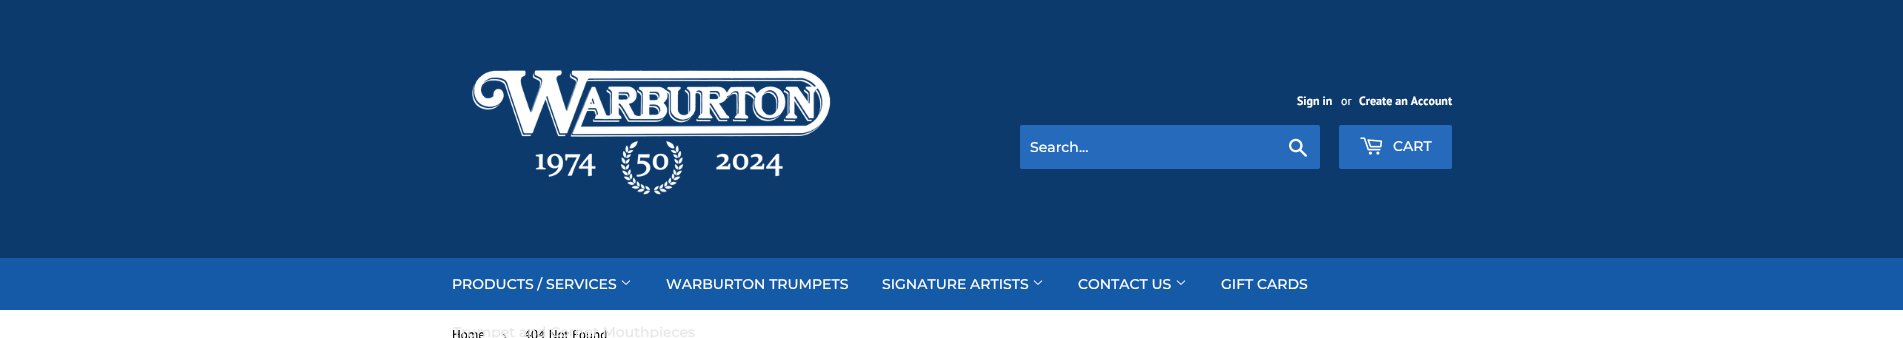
void draw(SkCanvas* canvas) {
    SkPaint paint;
    paint.setAntiAlias(true);
    auto face = [&](const char* family, int weight, float size, bool italic = false) {
        SkFontStyle style(weight, SkFontStyle::kNormal_Width,
            italic ? SkFontStyle::kItalic_Slant : SkFontStyle::kUpright_Slant);
        SkFont result(fontMgr->matchFamilyStyle(family, style), size);
        result.setSubpixel(true);
        return result;
    };
    auto write = [&](const char* s, float x, float y, const SkFont& font, SkColor color) {
        SkPaint ink(SkColor4f::FromColor(color));
        ink.setAntiAlias(true);
        canvas->drawString(s, x, y, font, ink);
    };
    auto block = [&](float x, float y, float w, float h, SkColor color) {
        SkPaint ink(SkColor4f::FromColor(color));
        ink.setAntiAlias(true);
        canvas->drawRect(SkRect::MakeXYWH(x, y, w, h), ink);
    };
    auto card = [&](float x, float y, float w, float h, float radius, SkColor color) {
        SkPaint ink(SkColor4f::FromColor(color));
        ink.setAntiAlias(true);
        canvas->drawRoundRect(SkRect::MakeXYWH(x, y, w, h), radius, radius, ink);
    };
    auto paste = [&](const char* path, float x, float y, float w, float h) {
        auto image = SkImages::DeferredFromEncodedData(SkData::MakeFromFileName(path));
        canvas->drawImageRect(image, SkRect::MakeXYWH(x, y, w, h), SkSamplingOptions());
    };
    canvas->clear(SK_ColorWHITE);
    block(0, 0, 1903, 258, SkColorSetRGB(12, 58, 109));
    paste("pic1.png", 472, 70, 359, 125);
    auto kFont1 = face("PT Sans", 700, 12);
    write("Sign in", 1297, 105, kFont1, SK_ColorWHITE);
    auto kFont2 = face("PT Sans", 400, 12);
    write("or", 1341, 105, kFont2, SK_ColorWHITE);
    write("Create an Account", 1359, 105, kFont1, SK_ColorWHITE);
    card(1020, 125, 300, 44, 2, SkColorSetRGB(38, 106, 187));
    auto kFont3 = face("Montserrat", 500, 14);
    write("Search...", 1030, 152, kFont3, SK_ColorWHITE);
    paste("pic2.png", 1289, 138, 18, 19);
    card(1339, 125, 113, 44, 2, SkColorSetRGB(38, 106, 187));
    paste("pic3.png", 1360, 137, 23, 18);
    write("CART", 1393, 151, kFont3, SK_ColorWHITE);
    block(0, 258, 1903, 52, SkColorSetRGB(21, 90, 167));
    write("PRODUCTS / SERVICES", 452, 289, kFont3, SK_ColorWHITE);
    paste("pic4.png", 621, 280, 10, 5);
    auto kFont4 = face("PT Sans", 400, 13);
    write("Home", 452, 339, kFont4, SK_ColorBLACK);
    auto kFont5 = face("Liberation Sans", 400, 15);
    write("›", 502, 341, kFont5, SkColorSetRGB(118, 118, 118));
    write("404 Not Found", 524, 339, kFont4, SK_ColorBLACK);
    write("Trumpet and Cornet Mouthpieces", 453, 337, kFont3, SkColorSetRGB(232, 232, 232));
    write("WARBURTON TRUMPETS", 666, 289, kFont3, SK_ColorWHITE);
    write("SIGNATURE ARTISTS", 882, 289, kFont3, SK_ColorWHITE);
    paste("pic4.png", 1033, 280, 10, 5);
    write("CONTACT US", 1078, 289, kFont3, SK_ColorWHITE);
    paste("pic4.png", 1176, 280, 10, 5);
    write("GIFT CARDS", 1221, 289, kFont3, SK_ColorWHITE);
}
